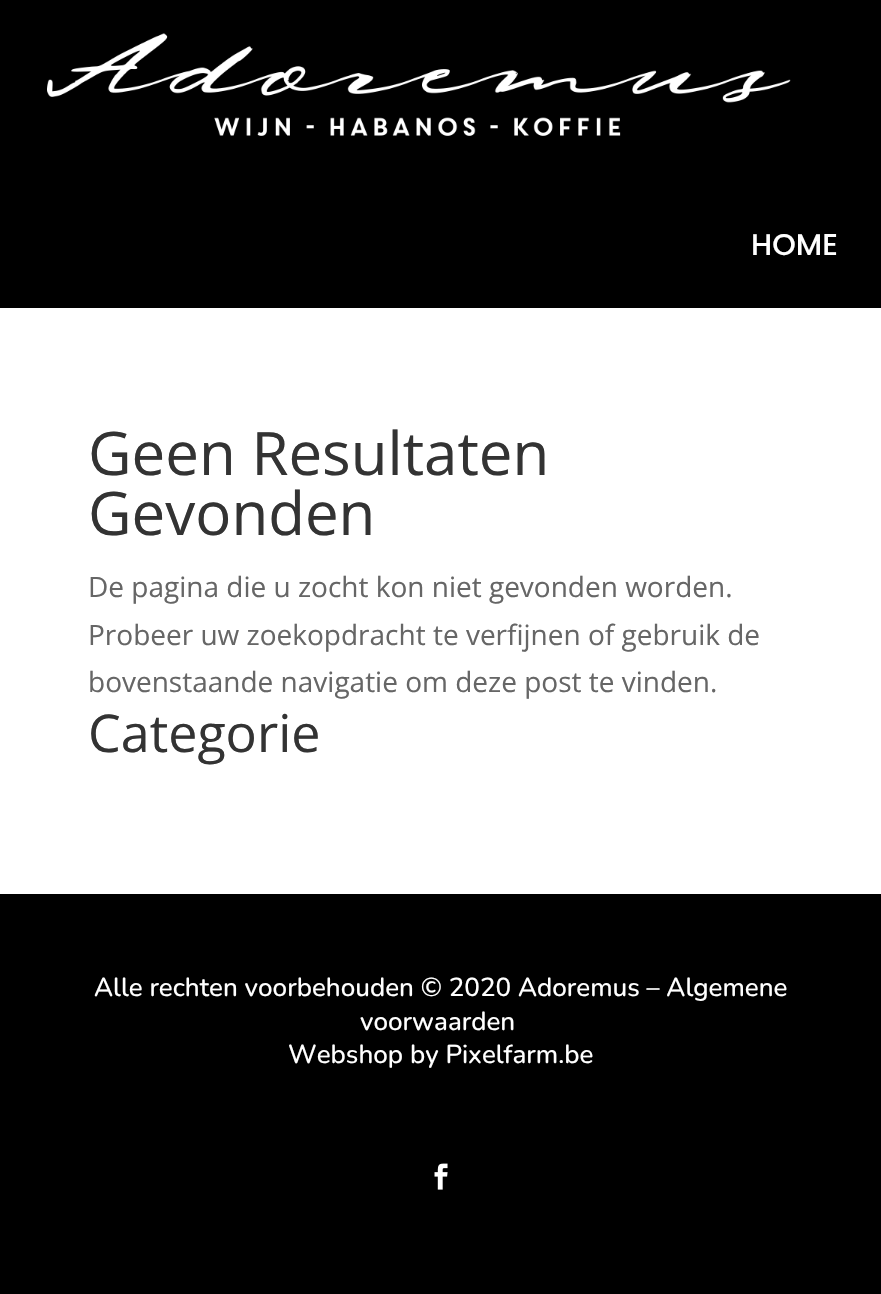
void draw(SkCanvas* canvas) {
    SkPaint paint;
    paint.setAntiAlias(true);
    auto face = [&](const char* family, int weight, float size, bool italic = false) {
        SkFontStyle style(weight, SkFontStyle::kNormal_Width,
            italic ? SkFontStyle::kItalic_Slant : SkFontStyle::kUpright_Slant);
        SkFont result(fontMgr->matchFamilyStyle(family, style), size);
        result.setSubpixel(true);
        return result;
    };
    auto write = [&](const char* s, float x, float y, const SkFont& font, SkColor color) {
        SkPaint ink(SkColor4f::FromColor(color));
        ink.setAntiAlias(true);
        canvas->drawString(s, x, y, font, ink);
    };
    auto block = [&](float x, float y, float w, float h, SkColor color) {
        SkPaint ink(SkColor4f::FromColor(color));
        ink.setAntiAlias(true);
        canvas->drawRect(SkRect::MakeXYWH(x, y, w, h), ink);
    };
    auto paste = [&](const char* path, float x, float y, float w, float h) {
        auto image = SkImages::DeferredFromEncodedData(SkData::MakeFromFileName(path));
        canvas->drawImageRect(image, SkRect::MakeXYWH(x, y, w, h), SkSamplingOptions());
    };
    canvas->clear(SK_ColorBLACK);
    paste("pic1.png", 47, 33, 744, 103);
    auto kFont1 = face("Poppins", 500, 30);
    write("HOME", 751, 255, kFont1, SK_ColorWHITE);
    block(0, 308, 881, 586, SK_ColorWHITE);
    auto kFont2 = face("Open Sans", 400, 60);
    write("Geen Resultaten", 88, 475, kFont2, SkColorSetRGB(51, 51, 51));
    write("Gevonden", 88, 535, kFont2, SkColorSetRGB(51, 51, 51));
    auto kFont3 = face("Open Sans", 400, 28);
    write("De pagina die u zocht kon niet gevonden worden.", 88, 597, kFont3, SkColorSetRGB(102, 102, 102));
    write("Probeer uw zoekopdracht te verfijnen of gebruik de", 88, 645, kFont3, SkColorSetRGB(102, 102, 102));
    write("bovenstaande navigatie om deze post te vinden.", 88, 692, kFont3, SkColorSetRGB(102, 102, 102));
    auto kFont4 = face("Open Sans", 400, 52);
    write("Categorie", 88, 752, kFont4, SkColorSetRGB(51, 51, 51));
    auto kFont5 = face("Nunito", 500, 26);
    write("Alle rechten voorbehouden © 2020 Adoremus – Algemene", 94, 996, kFont5, SK_ColorWHITE);
    write("voorwaarden", 360, 1030, kFont5, SK_ColorWHITE);
    write("Webshop by Pixelfarm.be", 288, 1063, kFont5, SK_ColorWHITE);
    paste("pic2.png", 434, 1163, 14, 27);
}
